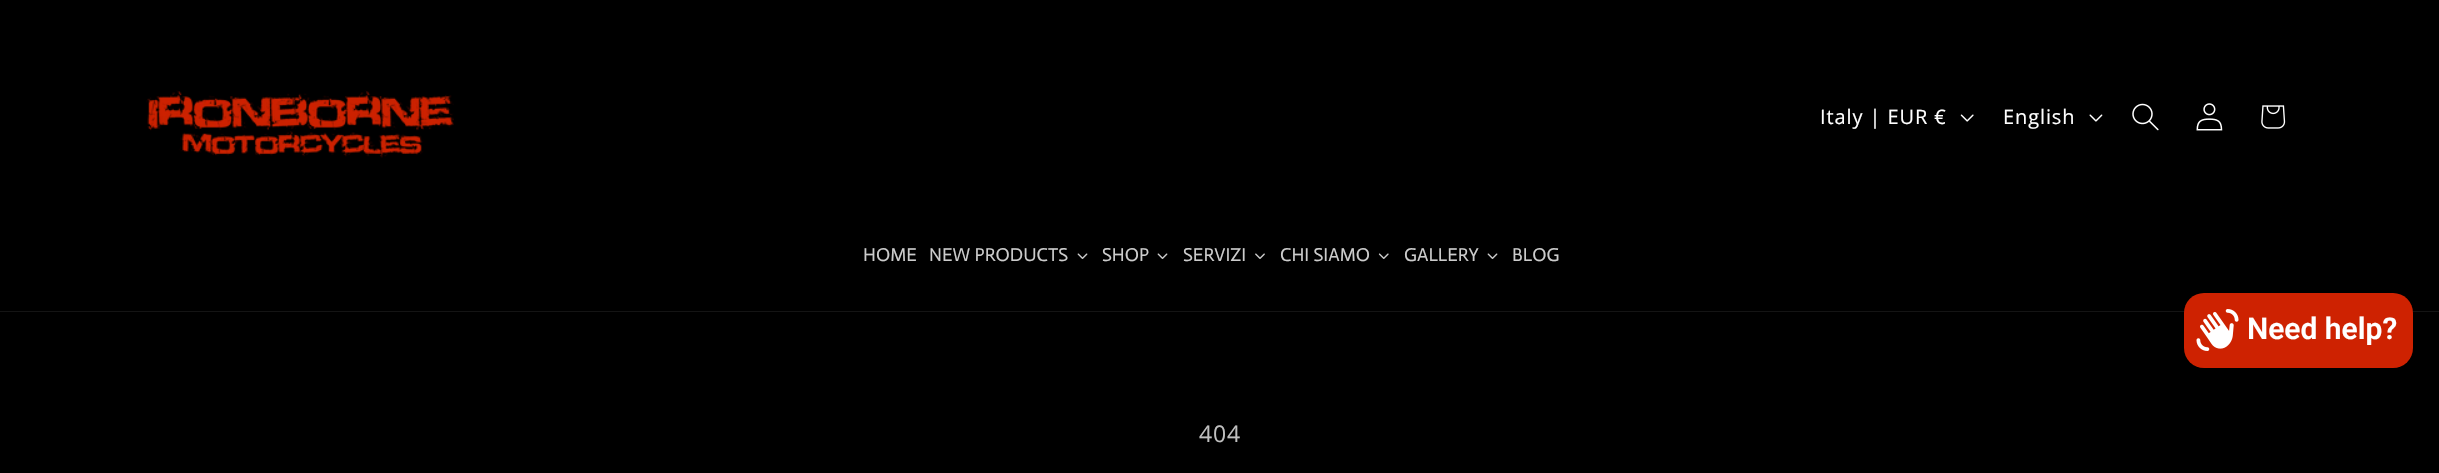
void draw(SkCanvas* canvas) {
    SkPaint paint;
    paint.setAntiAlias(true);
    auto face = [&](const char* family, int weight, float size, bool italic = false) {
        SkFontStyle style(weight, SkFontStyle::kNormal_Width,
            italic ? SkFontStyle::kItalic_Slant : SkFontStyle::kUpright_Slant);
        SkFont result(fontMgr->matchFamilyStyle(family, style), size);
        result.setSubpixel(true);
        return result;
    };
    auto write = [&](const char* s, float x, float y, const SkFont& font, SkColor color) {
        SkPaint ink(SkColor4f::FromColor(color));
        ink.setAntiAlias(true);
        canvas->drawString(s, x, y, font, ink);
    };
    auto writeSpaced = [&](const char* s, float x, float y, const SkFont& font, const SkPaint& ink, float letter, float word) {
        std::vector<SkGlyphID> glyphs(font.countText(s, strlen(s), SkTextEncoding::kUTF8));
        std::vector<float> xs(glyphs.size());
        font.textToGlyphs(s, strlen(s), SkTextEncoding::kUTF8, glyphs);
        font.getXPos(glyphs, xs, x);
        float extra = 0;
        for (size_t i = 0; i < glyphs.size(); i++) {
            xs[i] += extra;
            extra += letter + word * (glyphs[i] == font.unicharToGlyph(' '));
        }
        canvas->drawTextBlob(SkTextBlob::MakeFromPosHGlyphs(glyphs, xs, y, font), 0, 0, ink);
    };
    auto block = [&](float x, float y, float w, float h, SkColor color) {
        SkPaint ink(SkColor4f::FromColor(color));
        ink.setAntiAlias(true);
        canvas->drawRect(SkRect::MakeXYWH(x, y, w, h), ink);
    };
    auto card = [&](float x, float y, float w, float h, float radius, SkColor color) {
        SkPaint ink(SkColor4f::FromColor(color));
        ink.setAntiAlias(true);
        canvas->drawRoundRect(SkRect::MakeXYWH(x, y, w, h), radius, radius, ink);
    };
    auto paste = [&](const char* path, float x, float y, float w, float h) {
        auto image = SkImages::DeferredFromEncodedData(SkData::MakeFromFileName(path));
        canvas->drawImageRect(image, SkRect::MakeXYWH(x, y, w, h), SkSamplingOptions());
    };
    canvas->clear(SK_ColorBLACK);
    block(0, 311, 2439, 1, SkColorSetRGB(20, 20, 20));
    paste("pic1.png", 146, 90, 308, 68);
    auto kFont1 = face("Open Sans", 400, 20);
    paint.setColor(SK_ColorWHITE);
    writeSpaced("Italy | EUR €", 1820, 124, kFont1, paint, 0.9f, 0);
    paste("pic2.png", 1960, 114, 14, 8);
    writeSpaced("English", 2003, 124, kFont1, paint, 0.9f, 0);
    paste("pic3.png", 2089, 114, 14, 8);
    paste("pic4.png", 2132, 103, 27, 28);
    paste("pic5.png", 2196, 103, 27, 28);
    paste("pic6.png", 2261, 105, 25, 24);
    auto kFont2 = face("Actor", 400, 18.75f);
    write("HOME", 863, 261, kFont2, SkColorSetRGB(204, 204, 204));
    write("NEW PRODUCTS", 929, 261, kFont2, SkColorSetRGB(204, 204, 204));
    paste("pic7.png", 1077, 253, 11, 6);
    write("SHOP", 1102, 261, kFont2, SkColorSetRGB(204, 204, 204));
    paste("pic7.png", 1157, 253, 11, 6);
    write("SERVIZI", 1183, 261, kFont2, SkColorSetRGB(204, 204, 204));
    paste("pic8.png", 1255, 253, 10, 6);
    write("CHI SIAMO", 1280, 261, kFont2, SkColorSetRGB(204, 204, 204));
    paste("pic9.png", 1378, 253, 11, 6);
    write("GALLERY", 1404, 261, kFont2, SkColorSetRGB(204, 204, 204));
    paste("pic7.png", 1487, 253, 11, 6);
    write("BLOG", 1512, 261, kFont2, SkColorSetRGB(204, 204, 204));
    card(2184, 293, 229, 75, 20, SkColorSetRGB(206, 34, 1));
    paste("pic10.png", 2196, 309, 43, 42);
    auto kFont3 = face("Roboto", 600, 30);
    write("Need help?", 2247, 339, kFont3, SK_ColorWHITE);
    auto kFont4 = face("Open Sans", 400, 23);
    paint.setColor(SkColorSetRGB(191, 191, 191));
    writeSpaced("404", 1199, 442, kFont4, paint, 0.9f, 0);
}
